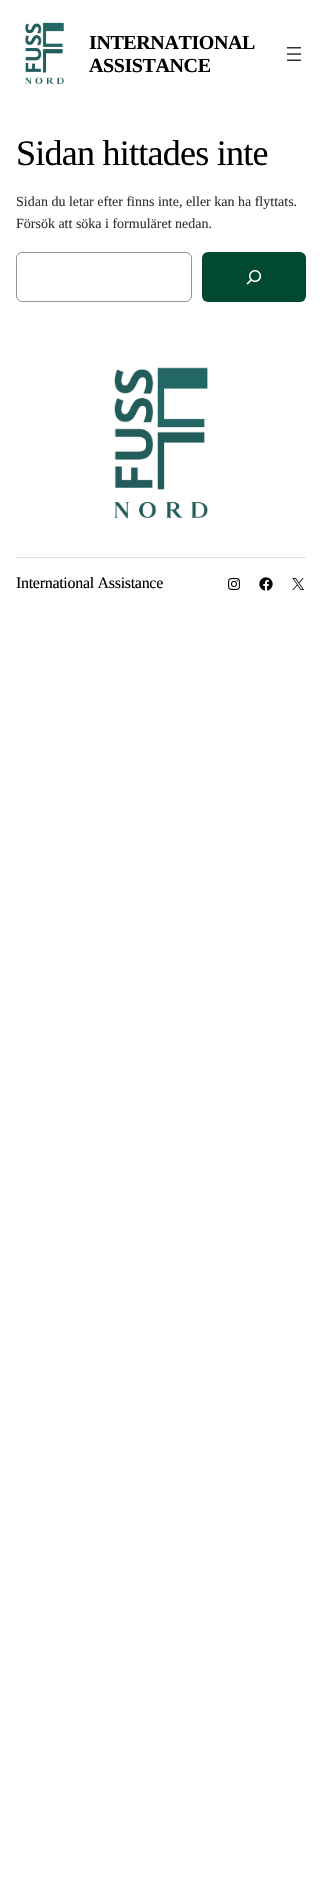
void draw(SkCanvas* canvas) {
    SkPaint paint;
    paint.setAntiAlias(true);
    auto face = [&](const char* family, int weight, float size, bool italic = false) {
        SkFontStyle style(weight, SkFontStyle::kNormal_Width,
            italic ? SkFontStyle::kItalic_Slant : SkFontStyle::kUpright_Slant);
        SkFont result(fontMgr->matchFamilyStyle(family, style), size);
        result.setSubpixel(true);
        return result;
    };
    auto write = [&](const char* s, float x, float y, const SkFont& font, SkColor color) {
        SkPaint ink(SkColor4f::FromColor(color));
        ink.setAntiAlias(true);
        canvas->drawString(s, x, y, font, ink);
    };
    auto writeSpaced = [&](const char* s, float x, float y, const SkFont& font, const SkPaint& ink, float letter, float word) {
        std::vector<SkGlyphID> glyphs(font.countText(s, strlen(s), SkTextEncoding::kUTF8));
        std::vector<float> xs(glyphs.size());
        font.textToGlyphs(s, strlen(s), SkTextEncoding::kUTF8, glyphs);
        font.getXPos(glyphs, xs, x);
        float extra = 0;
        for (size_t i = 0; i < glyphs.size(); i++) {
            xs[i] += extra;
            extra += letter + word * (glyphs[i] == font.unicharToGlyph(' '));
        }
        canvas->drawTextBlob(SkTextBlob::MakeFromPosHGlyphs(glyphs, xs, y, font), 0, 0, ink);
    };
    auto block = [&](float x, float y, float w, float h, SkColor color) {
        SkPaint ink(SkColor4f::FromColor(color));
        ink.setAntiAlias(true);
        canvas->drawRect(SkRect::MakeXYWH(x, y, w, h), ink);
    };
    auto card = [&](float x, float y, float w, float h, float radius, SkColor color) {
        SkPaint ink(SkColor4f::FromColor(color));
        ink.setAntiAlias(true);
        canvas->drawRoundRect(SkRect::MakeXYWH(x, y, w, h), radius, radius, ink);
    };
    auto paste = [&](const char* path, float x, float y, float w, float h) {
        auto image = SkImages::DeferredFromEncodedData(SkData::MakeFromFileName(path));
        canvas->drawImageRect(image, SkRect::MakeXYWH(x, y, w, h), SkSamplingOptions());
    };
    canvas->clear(SK_ColorWHITE);
    paste("pic1.png", 25, 22, 39, 63);
    auto kFont1 = face("Liberation Serif", 700, 20);
    paint.setColor(SK_ColorBLACK);
    writeSpaced("INTERNATIONAL", 89, 49, kFont1, paint, -0.4f, 0);
    writeSpaced("ASSISTANCE", 89, 72, kFont1, paint, -0.4f, 0);
    paste("pic2.png", 287, 47, 14, 14);
    auto kFont2 = face("Liberation Serif", 400, 36);
    writeSpaced("Sidan hittades inte", 16, 165, kFont2, paint, -0.75f, 0);
    auto kFont3 = face("Liberation Serif", 400, 14);
    write("Sidan du letar efter finns inte, eller kan ha flyttats.", 16, 206, kFont3, SkColorSetRGB(51, 51, 51));
    write("Försök att söka i formuläret nedan.", 16, 228, kFont3, SkColorSetRGB(51, 51, 51));
    paint.setStyle(SkPaint::kStroke_Style);
    paint.setStrokeWidth(1);
    paint.setColor(SkColorSetRGB(148, 148, 148));
    canvas->drawRoundRect(SkRect::MakeXYWH(16.5f, 252.5f, 175, 49), 5.5f, 5.5f, paint);
    card(202, 252, 104, 50, 6, SkColorSetRGB(1, 73, 50));
    paste("pic3.png", 246, 270, 16, 15);
    paste("pic4.png", 114, 367, 94, 152);
    block(16, 557, 290, 1, SkColorSetRGB(222, 222, 222));
    auto kFont4 = face("Liberation Serif", 400, 16);
    paint.setStyle(SkPaint::kFill_Style);
    paint.setColor(SK_ColorBLACK);
    writeSpaced("International Assistance", 16, 588, kFont4, paint, -0.3f, 0);
    paste("pic5.png", 228, 578, 12, 12);
    paste("pic6.png", 259, 577, 14, 14);
    paste("pic7.png", 292, 578, 12, 12);
}
